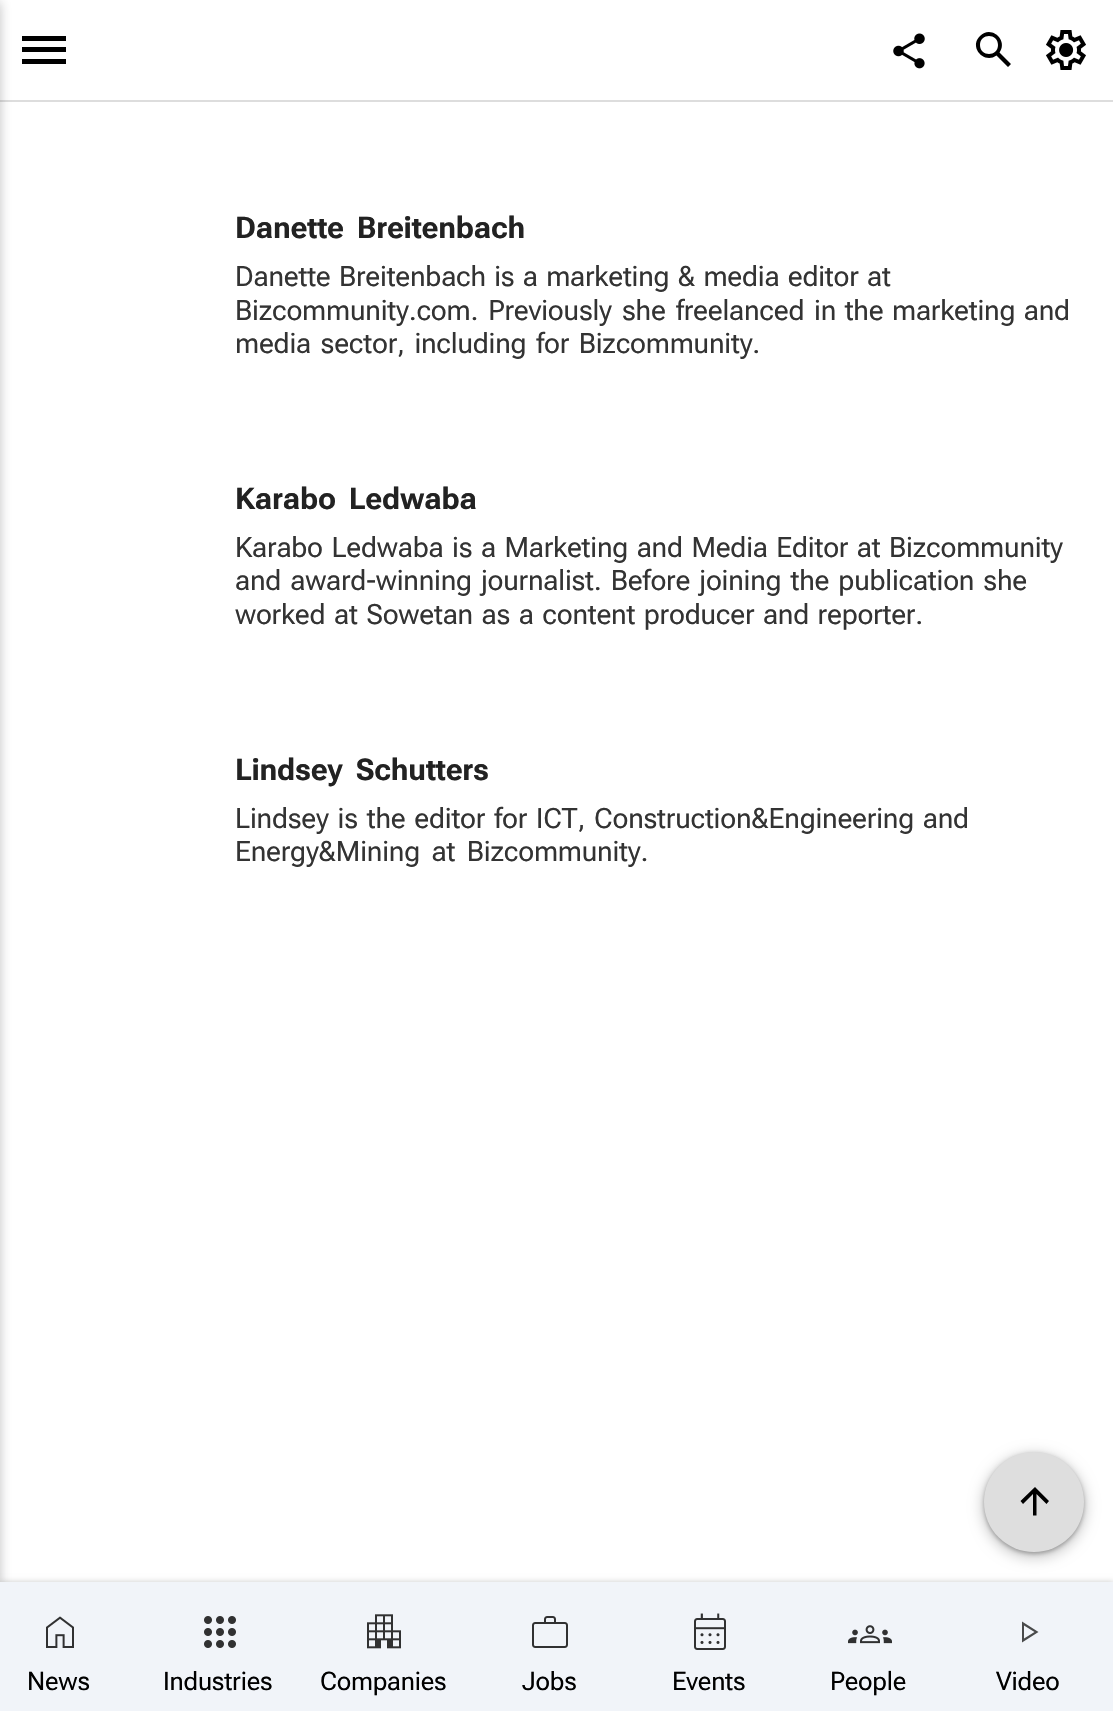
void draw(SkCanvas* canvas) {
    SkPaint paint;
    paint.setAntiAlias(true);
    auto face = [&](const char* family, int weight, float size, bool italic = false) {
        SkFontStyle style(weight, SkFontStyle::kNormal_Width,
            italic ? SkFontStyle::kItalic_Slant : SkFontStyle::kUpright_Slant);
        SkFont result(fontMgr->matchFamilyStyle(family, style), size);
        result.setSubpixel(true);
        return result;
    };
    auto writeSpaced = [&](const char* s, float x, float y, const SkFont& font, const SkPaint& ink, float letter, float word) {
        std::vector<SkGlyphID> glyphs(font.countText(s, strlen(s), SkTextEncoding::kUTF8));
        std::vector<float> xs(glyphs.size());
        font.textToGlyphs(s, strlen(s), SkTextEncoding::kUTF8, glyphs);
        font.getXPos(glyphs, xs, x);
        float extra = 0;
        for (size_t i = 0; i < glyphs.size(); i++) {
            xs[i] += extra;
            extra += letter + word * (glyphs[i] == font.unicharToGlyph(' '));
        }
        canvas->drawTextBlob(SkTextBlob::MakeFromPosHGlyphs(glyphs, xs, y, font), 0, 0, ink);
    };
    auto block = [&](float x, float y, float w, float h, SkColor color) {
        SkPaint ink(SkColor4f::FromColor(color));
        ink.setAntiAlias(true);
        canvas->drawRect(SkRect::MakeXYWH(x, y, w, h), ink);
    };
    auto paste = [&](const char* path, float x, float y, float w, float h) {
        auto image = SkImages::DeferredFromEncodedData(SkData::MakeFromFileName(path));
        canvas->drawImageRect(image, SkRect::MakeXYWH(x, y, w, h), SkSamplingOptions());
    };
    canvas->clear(SK_ColorWHITE);
    block(0, 100, 1113, 2, SkColorSetRGB(221, 221, 221));
    paint.setColor(SkColorSetARGB(71, 32, 33, 36));
    paint.setMaskFilter(SkMaskFilter::MakeBlur(kNormal_SkBlurStyle, 6));
    canvas->drawRect(SkRect::MakeXYWH(-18, 2, 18, 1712), paint);
    paint.setMaskFilter(nullptr);
    paint.setColor(SK_ColorBLACK);
    canvas->drawPath(SkPathBuilder().moveTo(22, 64).lineTo(22, 59).lineTo(66, 59).lineTo(66, 64).close().moveTo(22, 52).lineTo(22, 47).lineTo(66, 47).lineTo(66, 52).close().moveTo(22, 41).lineTo(22, 36).lineTo(66, 36).lineTo(66, 41).close().detach(), paint);
    paste("pic1.png", 893, 33, 32, 36);
    canvas->drawPath(SkPathBuilder().moveTo(1011, 64).lineTo(999.5f, 52.5f).cubicTo(1008.5f, 40, 991, 24.5f, 980, 36).cubicTo(968.5f, 47, 984, 64.5f, 996.5f, 55.5f).lineTo(1008, 67).close().moveTo(980, 45).cubicTo(980, 33, 998, 33, 998, 45).cubicTo(998, 57, 980, 57, 980, 45).close().detach(), paint);
    paste("pic2.png", 1046, 30, 40, 40);
    auto kFont1 = face("Roboto Flex", 700, 30);
    paint.setColor(SkColorSetRGB(34, 34, 34));
    writeSpaced("Danette Breitenbach", 235, 238, kFont1, paint, -0.2f, 6);
    auto kFont2 = face("Roboto Flex", 400, 28);
    paint.setColor(SkColorSetRGB(51, 51, 51));
    writeSpaced("Danette Breitenbach is a marketing & media editor at", 235, 286, kFont2, paint, -0.2f, 1.75f);
    writeSpaced("Bizcommunity.com. Previously she freelanced", 235, 320, kFont2, paint, -0.2f, 3.5f);
    writeSpaced("in the marketing and", 814, 320, kFont2, paint, -0.2f, 2);
    writeSpaced("media sector, including for Bizcommunity.", 235, 353, kFont2, paint, -0.2f, 3);
    paint.setColor(SkColorSetRGB(34, 34, 34));
    writeSpaced("Karabo Ledwaba", 235, 509, kFont1, paint, -0.2f, 6);
    paint.setColor(SkColorSetRGB(51, 51, 51));
    writeSpaced("Karabo Ledwaba is a Marketing and Media Editor at Bizcommunity", 235, 557, kFont2, paint, -0.2f, 2);
    writeSpaced("and award-winning journalist. Before joining the publication she", 235, 590, kFont2, paint, -0.2f, 2.5f);
    writeSpaced("worked at Sowetan as a content producer and reporter.", 235, 624, kFont2, paint, -0.2f, 2);
    paint.setColor(SkColorSetRGB(34, 34, 34));
    writeSpaced("Lindsey Schutters", 235, 780, kFont1, paint, -0.2f, 6);
    paint.setColor(SkColorSetRGB(51, 51, 51));
    writeSpaced("Lindsey is the editor for ICT, Construction&Engineering and", 235, 828, kFont2, paint, -0.2f, 2.25f);
    writeSpaced("Energy&Mining at Bizcommunity.", 235, 861, kFont2, paint, -0.2f, 5);
    paint.setColor(SkColorSetARGB(77, 0, 0, 0));
    paint.setMaskFilter(SkMaskFilter::MakeBlur(kNormal_SkBlurStyle, 2));
    canvas->drawRoundRect(SkRect::MakeXYWH(984, 1454, 100, 100), 50, 50, paint);
    paint.setMaskFilter(nullptr);
    paint.setColor(SkColorSetARGB(38, 0, 0, 0));
    paint.setMaskFilter(SkMaskFilter::MakeBlur(kNormal_SkBlurStyle, 6));
    canvas->drawRoundRect(SkRect::MakeXYWH(980, 1452, 108, 108), 54, 54, paint);
    paint.setMaskFilter(nullptr);
    paint.setColor(SkColorSetRGB(222, 222, 222));
    canvas->drawCircle(1034, 1502, 50, paint);
    paint.setColor(SK_ColorBLACK);
    canvas->drawPath(SkPathBuilder().moveTo(1033, 1494).lineTo(1023, 1504).lineTo(1020.5f, 1501).lineTo(1035, 1487).lineTo(1049, 1501).lineTo(1046.5f, 1504).lineTo(1036.5f, 1494).lineTo(1036.5f, 1515.5f).lineTo(1033, 1515.5f).close().detach(), paint);
    paint.setColor(SkColorSetARGB(51, 0, 0, 0));
    paint.setMaskFilter(SkMaskFilter::MakeBlur(kNormal_SkBlurStyle, 3));
    canvas->drawRect(SkRect::MakeXYWH(0, 1582, 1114, 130), paint);
    paint.setMaskFilter(nullptr);
    block(0, 1582, 1113, 129, SkColorSetRGB(241, 244, 249));
    paste("pic3.png", 46, 1616, 28, 32);
    auto kFont3 = face("Roboto Flex", 400, 25.5f);
    paint.setColor(SK_ColorBLACK);
    writeSpaced("News", 27, 1690, kFont3, paint, -0.2f, 0);
    paste("pic4.png", 204, 1616, 32, 32);
    writeSpaced("Industries", 163, 1690, kFont3, paint, -0.2f, 0);
    paste("pic5.png", 367, 1614, 34, 35);
    writeSpaced("Companies", 320, 1690, kFont3, paint, -0.2f, 0);
    paste("pic6.png", 532, 1616, 36, 32);
    writeSpaced("Jobs", 522, 1690, kFont3, paint, -0.2f, 0);
    paste("pic7.png", 694, 1613, 32, 37);
    writeSpaced("Events", 672, 1690, kFont3, paint, -0.2f, 0);
    paste("pic8.png", 848, 1625, 44, 19);
    writeSpaced("People", 830, 1690, kFont3, paint, -0.2f, 0);
    paint.setColor(SkColorSetRGB(73, 74, 75));
    canvas->drawPath(SkPathBuilder().moveTo(1022, 1642.5f).lineTo(1022, 1621.5f).lineTo(1038.5f, 1632).close().moveTo(1024, 1632).close().moveTo(1024, 1638.5f).lineTo(1034.5f, 1632).lineTo(1024, 1625.5f).close().detach(), paint);
    paint.setColor(SK_ColorBLACK);
    writeSpaced("Video", 996, 1690, kFont3, paint, -0.2f, 0);
}
